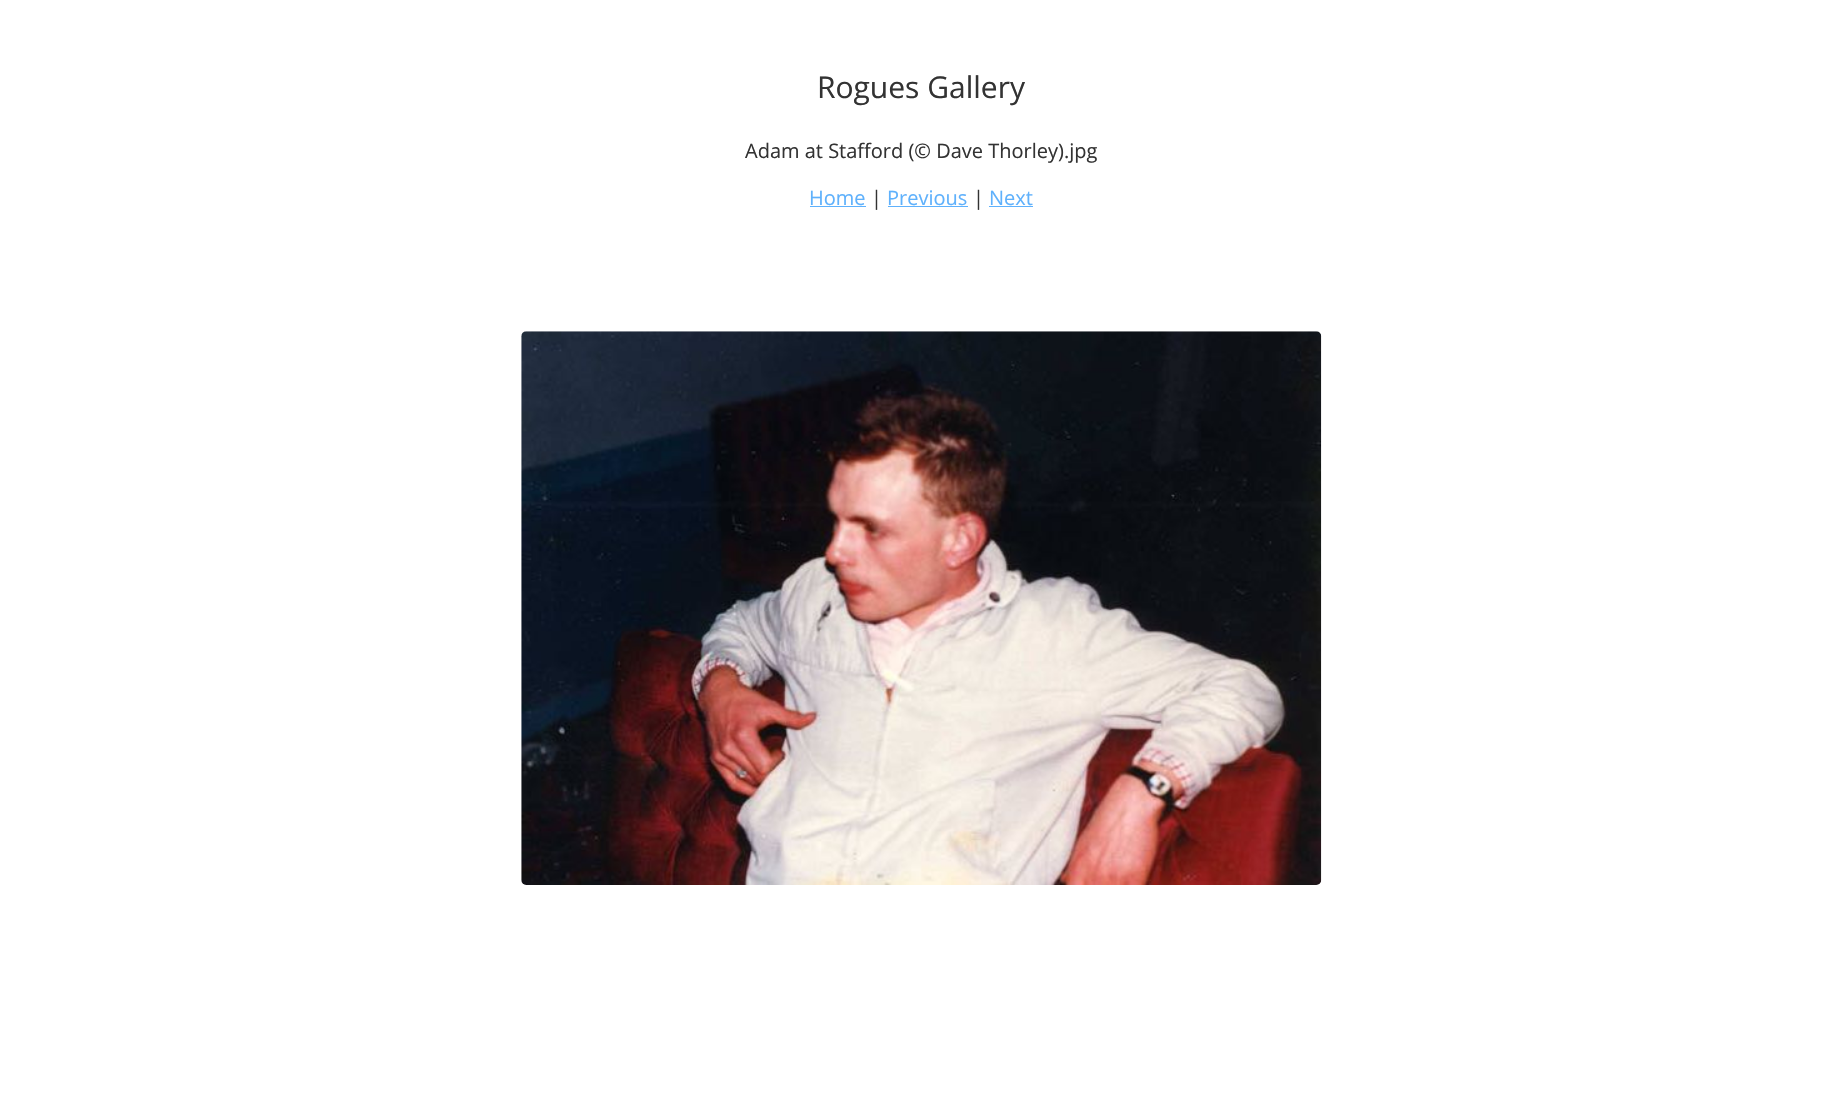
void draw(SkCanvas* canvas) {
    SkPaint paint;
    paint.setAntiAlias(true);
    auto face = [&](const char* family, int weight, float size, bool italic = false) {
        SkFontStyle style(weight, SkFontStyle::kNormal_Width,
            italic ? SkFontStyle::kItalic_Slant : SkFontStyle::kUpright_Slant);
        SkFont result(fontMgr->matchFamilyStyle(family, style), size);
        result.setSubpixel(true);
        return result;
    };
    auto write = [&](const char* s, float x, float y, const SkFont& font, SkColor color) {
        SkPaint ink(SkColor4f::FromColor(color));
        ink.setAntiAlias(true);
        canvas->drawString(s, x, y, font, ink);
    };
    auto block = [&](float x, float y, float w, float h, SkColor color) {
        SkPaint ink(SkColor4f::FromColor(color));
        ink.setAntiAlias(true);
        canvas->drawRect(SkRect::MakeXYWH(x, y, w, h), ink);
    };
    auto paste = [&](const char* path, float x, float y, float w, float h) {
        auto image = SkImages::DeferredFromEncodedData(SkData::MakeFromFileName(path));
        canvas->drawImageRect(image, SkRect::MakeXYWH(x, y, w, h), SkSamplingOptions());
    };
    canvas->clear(SK_ColorWHITE);
    auto kFont1 = face("Open Sans", 400, 30);
    write("Rogues Gallery", 817, 98, kFont1, SkColorSetRGB(51, 51, 51));
    auto kFont2 = face("Open Sans", 400, 20);
    write("Adam at Stafford (© Dave Thorley).jpg", 745, 158, kFont2, SkColorSetRGB(51, 51, 51));
    write("Home", 809, 205, kFont2, SkColorSetRGB(95, 177, 252));
    block(810, 206, 56, 1, SkColorSetRGB(95, 177, 252));
    write("|", 871, 205, kFont2, SkColorSetRGB(51, 51, 51));
    write("Previous", 887, 205, kFont2, SkColorSetRGB(95, 177, 252));
    block(888, 206, 80, 1, SkColorSetRGB(95, 177, 252));
    write("|", 973, 205, kFont2, SkColorSetRGB(51, 51, 51));
    write("Next", 989, 205, kFont2, SkColorSetRGB(95, 177, 252));
    block(989, 206, 44, 1, SkColorSetRGB(95, 177, 252));
    paste("pic1.png", 521, 331, 801, 554);
}
